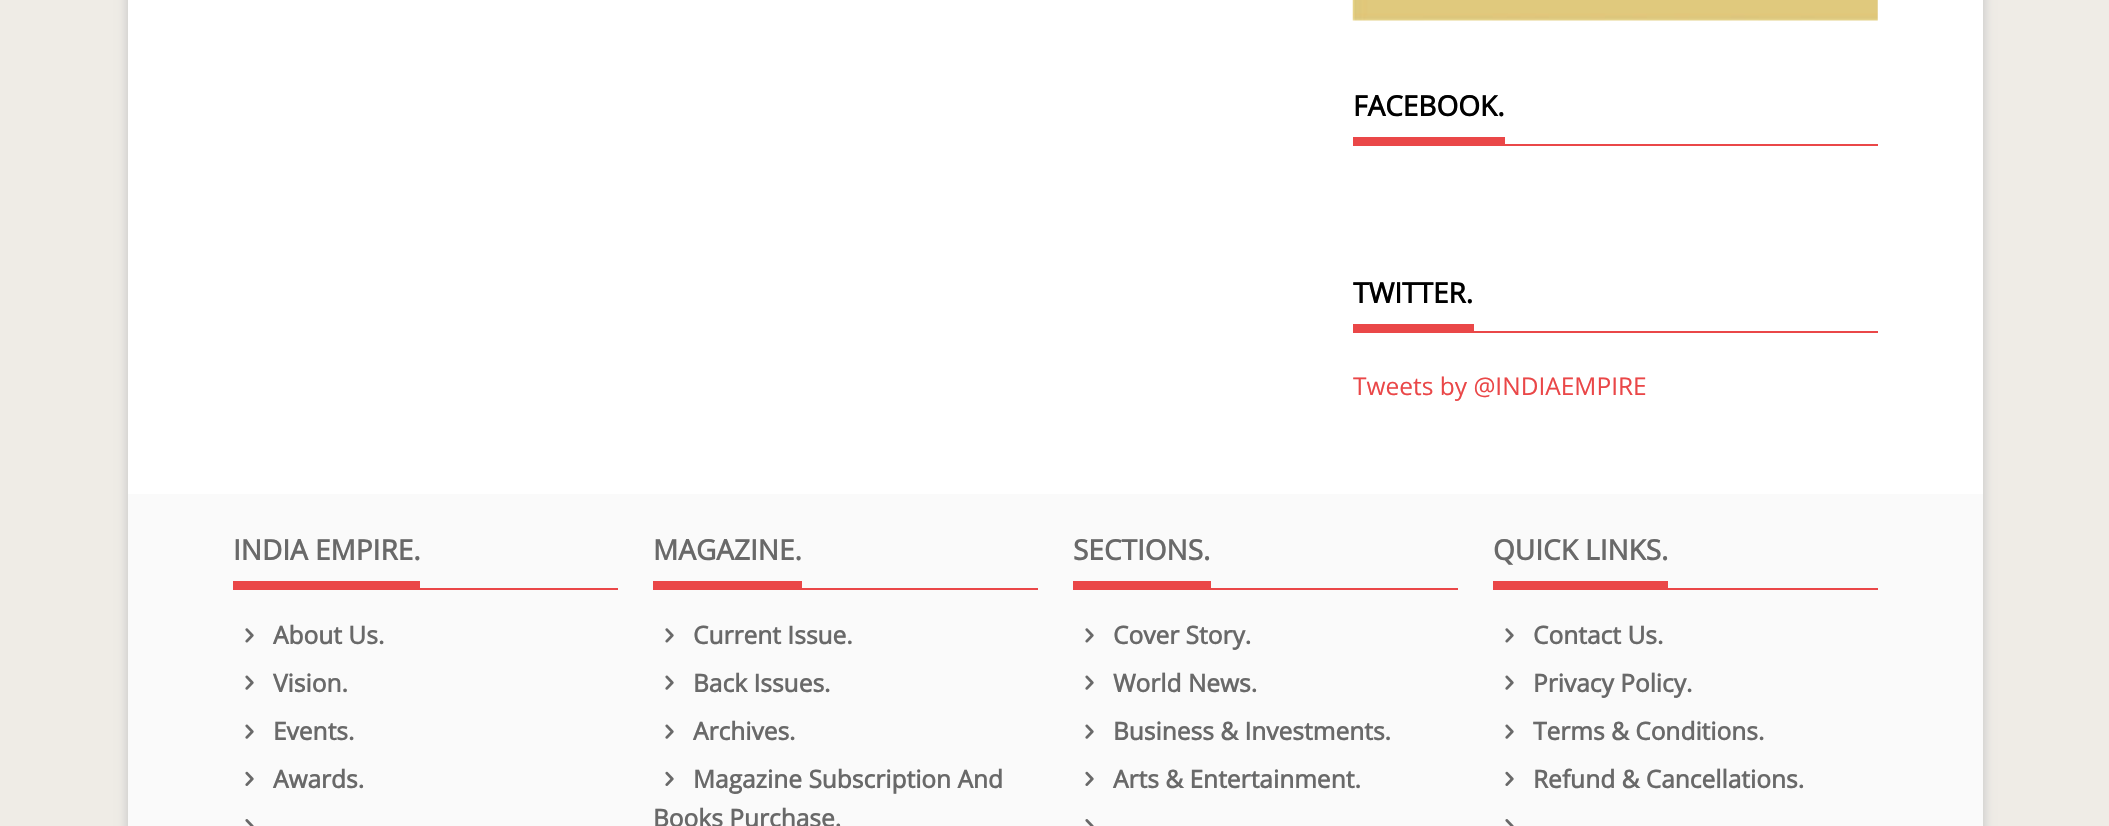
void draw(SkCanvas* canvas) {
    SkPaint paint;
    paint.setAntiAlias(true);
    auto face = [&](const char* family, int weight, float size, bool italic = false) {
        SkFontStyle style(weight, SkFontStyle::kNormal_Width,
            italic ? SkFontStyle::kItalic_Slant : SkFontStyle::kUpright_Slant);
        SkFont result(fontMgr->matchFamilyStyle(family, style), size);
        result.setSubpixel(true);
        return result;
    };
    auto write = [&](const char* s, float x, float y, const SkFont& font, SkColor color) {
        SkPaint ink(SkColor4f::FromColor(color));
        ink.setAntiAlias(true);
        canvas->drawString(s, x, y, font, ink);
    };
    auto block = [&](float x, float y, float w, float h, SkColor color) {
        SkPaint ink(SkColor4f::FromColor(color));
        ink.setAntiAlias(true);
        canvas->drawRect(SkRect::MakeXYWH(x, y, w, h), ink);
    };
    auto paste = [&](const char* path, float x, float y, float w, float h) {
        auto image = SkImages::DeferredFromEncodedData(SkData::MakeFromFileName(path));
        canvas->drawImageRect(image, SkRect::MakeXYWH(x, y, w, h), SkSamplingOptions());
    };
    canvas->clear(SkColorSetRGB(239, 236, 230));
    paint.setColor(SkColorSetRGB(204, 204, 204));
    paint.setMaskFilter(SkMaskFilter::MakeBlur(kNormal_SkBlurStyle, 4.5f));
    canvas->drawRect(SkRect::MakeXYWH(126, -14, 1838, 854), paint);
    paint.setMaskFilter(nullptr);
    paint.setMaskFilter(SkMaskFilter::MakeBlur(kNormal_SkBlurStyle, 4.5f));
    canvas->drawRect(SkRect::MakeXYWH(147, -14, 1838, 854), paint);
    paint.setMaskFilter(nullptr);
    block(128, 0, 1855, 494, SK_ColorWHITE);
    paste("pic1.png", 1352, 0, 526, 21);
    block(1353, 144, 525, 2, SkColorSetRGB(234, 71, 72));
    auto kFont1 = face("Open Sans", 700, 28);
    write("FACEBOOK.", 1353, 116, kFont1, SK_ColorBLACK);
    block(1353, 137, 152, 7, SkColorSetRGB(234, 71, 72));
    block(1353, 331, 525, 2, SkColorSetRGB(234, 71, 72));
    write("TWITTER.", 1353, 303, kFont1, SK_ColorBLACK);
    block(1353, 324, 121, 7, SkColorSetRGB(234, 71, 72));
    auto kFont2 = face("Open Sans", 400, 24.5f);
    write("Tweets by @INDIAEMPIRE", 1353, 395, kFont2, SkColorSetRGB(234, 71, 72));
    block(128, 494, 1855, 332, SkColorSetRGB(250, 250, 250));
    block(233, 588, 385, 2, SkColorSetRGB(234, 71, 72));
    write("INDIA EMPIRE.", 233, 560, kFont1, SkColorSetRGB(105, 105, 105));
    block(233, 581, 187, 7, SkColorSetRGB(234, 71, 72));
    paste("pic2.png", 245, 628, 9, 15);
    auto kFont3 = face("Open Sans", 700, 24.5f);
    write("About Us.", 273, 644, kFont3, SkColorSetRGB(105, 105, 105));
    paste("pic3.png", 245, 675, 9, 15);
    write("Vision.", 273, 692, kFont3, SkColorSetRGB(105, 105, 105));
    paste("pic3.png", 245, 724, 9, 15);
    write("Events.", 273, 740, kFont3, SkColorSetRGB(105, 105, 105));
    paste("pic4.png", 245, 771, 9, 15);
    write("Awards.", 273, 788, kFont3, SkColorSetRGB(105, 105, 105));
    paste("pic5.png", 245, 819, 9, 7);
    block(653, 588, 385, 2, SkColorSetRGB(234, 71, 72));
    write("MAGAZINE.", 653, 560, kFont1, SkColorSetRGB(105, 105, 105));
    block(653, 581, 149, 7, SkColorSetRGB(234, 71, 72));
    paste("pic2.png", 665, 628, 9, 15);
    write("Current Issue.", 693, 644, kFont3, SkColorSetRGB(105, 105, 105));
    paste("pic3.png", 665, 675, 9, 15);
    write("Back Issues.", 693, 692, kFont3, SkColorSetRGB(105, 105, 105));
    paste("pic3.png", 665, 724, 9, 15);
    write("Archives.", 693, 740, kFont3, SkColorSetRGB(105, 105, 105));
    paste("pic4.png", 665, 771, 9, 15);
    write("Magazine Subscription And", 693, 788, kFont3, SkColorSetRGB(105, 105, 105));
    write("Books Purchase.", 653, 827, kFont3, SkColorSetRGB(105, 105, 105));
    block(1073, 588, 385, 2, SkColorSetRGB(234, 71, 72));
    write("SECTIONS.", 1073, 560, kFont1, SkColorSetRGB(105, 105, 105));
    block(1073, 581, 138, 7, SkColorSetRGB(234, 71, 72));
    paste("pic2.png", 1085, 628, 9, 15);
    write("Cover Story.", 1113, 644, kFont3, SkColorSetRGB(105, 105, 105));
    paste("pic3.png", 1085, 675, 9, 15);
    write("World News.", 1113, 692, kFont3, SkColorSetRGB(105, 105, 105));
    paste("pic3.png", 1085, 724, 9, 15);
    write("Business & Investments.", 1113, 740, kFont3, SkColorSetRGB(105, 105, 105));
    paste("pic4.png", 1085, 771, 9, 15);
    write("Arts & Entertainment.", 1113, 788, kFont3, SkColorSetRGB(105, 105, 105));
    paste("pic5.png", 1085, 819, 9, 7);
    block(1493, 588, 385, 2, SkColorSetRGB(234, 71, 72));
    write("QUICK LINKS.", 1493, 560, kFont1, SkColorSetRGB(105, 105, 105));
    block(1493, 581, 175, 7, SkColorSetRGB(234, 71, 72));
    paste("pic2.png", 1505, 628, 9, 15);
    write("Contact Us.", 1533, 644, kFont3, SkColorSetRGB(105, 105, 105));
    paste("pic3.png", 1505, 675, 9, 15);
    write("Privacy Policy.", 1533, 692, kFont3, SkColorSetRGB(105, 105, 105));
    paste("pic3.png", 1505, 724, 9, 15);
    write("Terms & Conditions.", 1533, 740, kFont3, SkColorSetRGB(105, 105, 105));
    paste("pic4.png", 1505, 771, 9, 15);
    write("Refund & Cancellations.", 1533, 788, kFont3, SkColorSetRGB(105, 105, 105));
    paste("pic5.png", 1505, 819, 9, 7);
}
